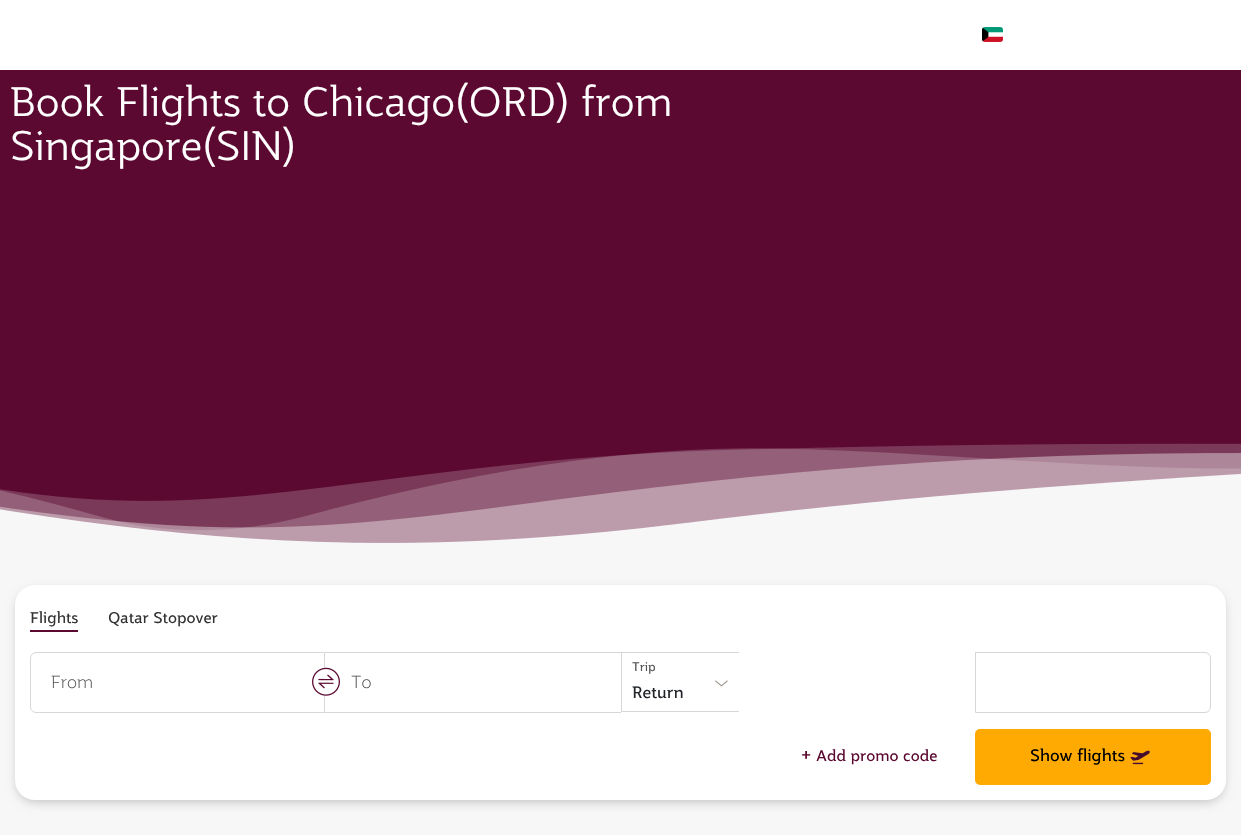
void draw(SkCanvas* canvas) {
    SkPaint paint;
    paint.setAntiAlias(true);
    auto face = [&](const char* family, int weight, float size, bool italic = false) {
        SkFontStyle style(weight, SkFontStyle::kNormal_Width,
            italic ? SkFontStyle::kItalic_Slant : SkFontStyle::kUpright_Slant);
        SkFont result(fontMgr->matchFamilyStyle(family, style), size);
        result.setSubpixel(true);
        return result;
    };
    auto write = [&](const char* s, float x, float y, const SkFont& font, SkColor color) {
        SkPaint ink(SkColor4f::FromColor(color));
        ink.setAntiAlias(true);
        canvas->drawString(s, x, y, font, ink);
    };
    auto block = [&](float x, float y, float w, float h, SkColor color) {
        SkPaint ink(SkColor4f::FromColor(color));
        ink.setAntiAlias(true);
        canvas->drawRect(SkRect::MakeXYWH(x, y, w, h), ink);
    };
    auto card = [&](float x, float y, float w, float h, float radius, SkColor color) {
        SkPaint ink(SkColor4f::FromColor(color));
        ink.setAntiAlias(true);
        canvas->drawRoundRect(SkRect::MakeXYWH(x, y, w, h), radius, radius, ink);
    };
    auto paste = [&](const char* path, float x, float y, float w, float h) {
        auto image = SkImages::DeferredFromEncodedData(SkData::MakeFromFileName(path));
        canvas->drawImageRect(image, SkRect::MakeXYWH(x, y, w, h), SkSamplingOptions());
    };
    canvas->clear(SkColorSetRGB(247, 247, 247));
    block(0, 0, 1241, 70, SK_ColorWHITE);
    paste("pic1.png", 982, 27, 21, 15);
    block(0, 70, 1241, 473, SkColorSetRGB(92, 9, 49));
    auto kFont1 = face("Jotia", 300, 40);
    write("Book Flights to Chicago(ORD) from", 10, 116, kFont1, SK_ColorWHITE);
    write("Singapore(SIN)", 10, 160, kFont1, SK_ColorWHITE);
    paste("pic2.png", 0, 443, 1241, 102);
    paint.setColor(SkColorSetARGB(64, 0, 0, 0));
    paint.setMaskFilter(SkMaskFilter::MakeBlur(kNormal_SkBlurStyle, 5.5f));
    canvas->drawRoundRect(SkRect::MakeXYWH(18, 592, 1205, 209), 17, 17, paint);
    paint.setMaskFilter(nullptr);
    card(15, 585, 1211, 215, 20, SK_ColorWHITE);
    auto kFont2 = face("Jotia", 400, 15);
    write("Flights", 30, 623, kFont2, SkColorSetRGB(51, 51, 51));
    block(30, 630, 48, 2, SkColorSetRGB(92, 9, 49));
    write("Qatar Stopover", 108, 623, kFont2, SkColorSetRGB(51, 51, 51));
    paint.setStyle(SkPaint::kStroke_Style);
    paint.setStrokeWidth(1);
    paint.setColor(SkColorSetRGB(215, 215, 215));
    canvas->drawPath(SkPathBuilder().moveTo(36, 652.5f).lineTo(324.5f, 652.5f).lineTo(324.5f, 712.5f).lineTo(36, 712.5f).cubicTo(33, 712.5f, 30.5f, 710, 30.5f, 707).lineTo(30.5f, 658).cubicTo(30.5f, 655, 33, 652.5f, 36, 652.5f).close().detach(), paint);
    auto kFont3 = face("Jotia", 100, 17);
    write("From", 51, 688, kFont3, SkColorSetRGB(85, 85, 85));
    block(324, 668, 1, 28, SK_ColorWHITE);
    paste("pic3.png", 312, 667, 28, 29);
    block(325, 652, 414, 1, SkColorSetRGB(215, 215, 215));
    block(325, 712, 296, 1, SkColorSetRGB(215, 215, 215));
    write("To", 351, 688, kFont3, SkColorSetRGB(85, 85, 85));
    block(621, 711, 118, 1, SkColorSetRGB(215, 215, 215));
    block(621, 652, 1, 60, SkColorSetRGB(215, 215, 215));
    auto kFont4 = face("Jotia", 400, 12);
    write("Trip", 632, 671, kFont4, SkColorSetRGB(85, 85, 85));
    paste("pic4.png", 715, 680, 13, 7);
    auto kFont5 = face("Jotia", 400, 16);
    write("Return", 632, 698, kFont5, SkColorSetRGB(33, 37, 41));
    canvas->drawPath(SkPathBuilder().moveTo(975.5f, 652.5f).lineTo(1205, 652.5f).cubicTo(1208, 652.5f, 1210.5f, 655, 1210.5f, 658).lineTo(1210.5f, 707).cubicTo(1210.5f, 710, 1208, 712.5f, 1205, 712.5f).lineTo(975.5f, 712.5f).close().detach(), paint);
    auto kFont6 = face("Jotia", 400, 19);
    write("+", 801, 761, kFont6, SkColorSetRGB(92, 9, 49));
    write("Add promo code", 816, 761, kFont2, SkColorSetRGB(92, 9, 49));
    paint.setStyle(SkPaint::kFill_Style);
    paint.setColor(SkColorSetRGB(255, 169, 3));
    canvas->drawRoundRect(SkRect::MakeXYWH(976, 730, 234, 54), 4, 4, paint);
    paint.setStyle(SkPaint::kStroke_Style);
    paint.setStrokeWidth(2);
    canvas->drawRoundRect(SkRect::MakeXYWH(976, 730, 234, 54), 4, 4, paint);
    write("Show flights", 1030, 761, kFont5, SK_ColorBLACK);
    paste("pic5.png", 1130, 750, 20, 15);
}
